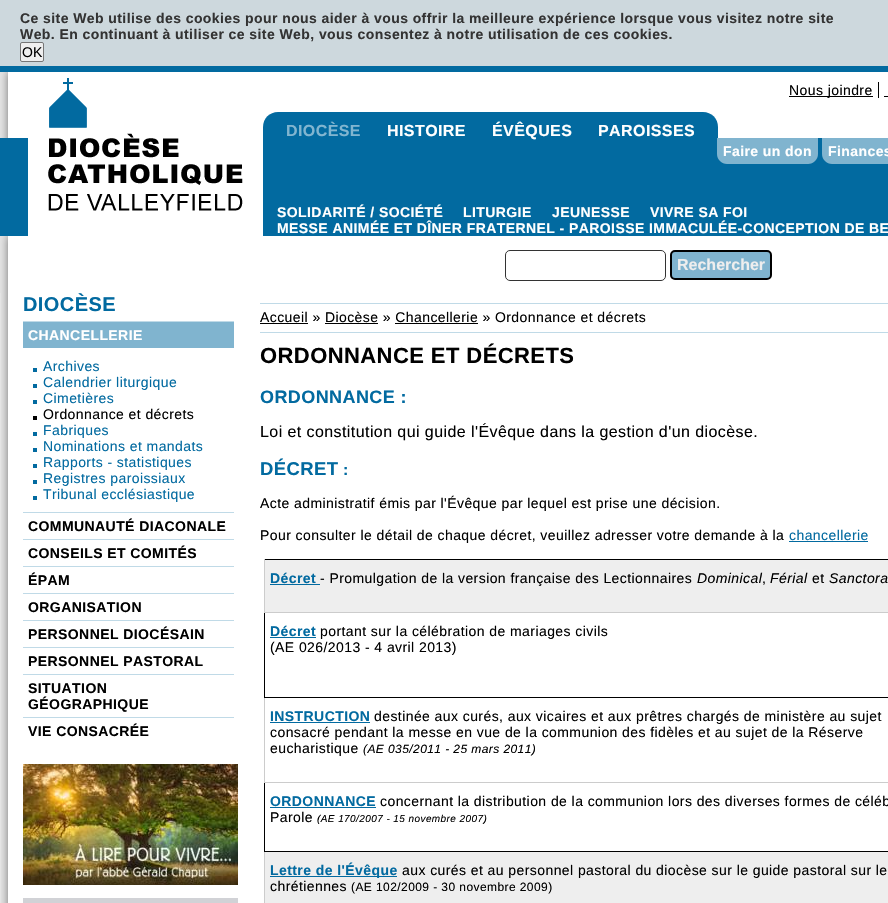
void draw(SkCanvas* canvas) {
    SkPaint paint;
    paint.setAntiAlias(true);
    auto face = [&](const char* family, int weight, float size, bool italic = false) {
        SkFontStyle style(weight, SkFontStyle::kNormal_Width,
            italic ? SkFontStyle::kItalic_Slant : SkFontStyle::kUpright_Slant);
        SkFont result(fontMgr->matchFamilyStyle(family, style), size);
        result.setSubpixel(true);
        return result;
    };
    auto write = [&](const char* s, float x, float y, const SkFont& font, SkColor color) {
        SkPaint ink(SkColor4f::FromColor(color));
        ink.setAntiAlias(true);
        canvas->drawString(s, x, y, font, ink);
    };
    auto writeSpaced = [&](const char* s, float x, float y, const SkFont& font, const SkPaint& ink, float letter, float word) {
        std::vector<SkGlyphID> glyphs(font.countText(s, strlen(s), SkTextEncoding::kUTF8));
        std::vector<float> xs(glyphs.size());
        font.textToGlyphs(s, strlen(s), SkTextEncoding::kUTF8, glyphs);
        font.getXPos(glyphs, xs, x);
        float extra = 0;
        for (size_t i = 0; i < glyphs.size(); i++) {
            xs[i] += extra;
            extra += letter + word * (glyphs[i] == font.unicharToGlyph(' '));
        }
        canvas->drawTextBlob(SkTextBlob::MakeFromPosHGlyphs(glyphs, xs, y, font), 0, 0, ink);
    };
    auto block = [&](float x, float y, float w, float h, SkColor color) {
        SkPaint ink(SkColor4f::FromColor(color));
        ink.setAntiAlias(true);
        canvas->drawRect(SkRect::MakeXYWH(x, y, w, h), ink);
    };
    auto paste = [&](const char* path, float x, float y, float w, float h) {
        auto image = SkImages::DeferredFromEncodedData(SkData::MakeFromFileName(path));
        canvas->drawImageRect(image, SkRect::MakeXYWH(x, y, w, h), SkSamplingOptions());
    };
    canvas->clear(SkColorSetRGB(228, 228, 228));
    block(0, 0, 888, 66, SkColorSetRGB(205, 216, 221));
    block(0, 66, 888, 6, SkColorSetRGB(2, 106, 160));
    auto kFont1 = face("Liberation Sans", 700, 14);
    paint.setColor(SkColorSetRGB(51, 51, 51));
    writeSpaced("Ce site Web utilise des cookies pour nous aider à vous offrir la meilleure expérience lorsque vous visitez notre site", 20, 23, kFont1, paint, 0.42f, 0);
    writeSpaced("Web. En continuant à utiliser ce site Web, vous consentez à notre utilisation de ces cookies.", 20, 39, kFont1, paint, 0.42f, 0);
    paint.setColor(SkColorSetRGB(239, 239, 239));
    canvas->drawRoundRect(SkRect::MakeXYWH(20.5f, 42.5f, 23, 19), 1.5f, 1.5f, paint);
    paint.setStyle(SkPaint::kStroke_Style);
    paint.setStrokeWidth(1);
    paint.setColor(SkColorSetRGB(118, 118, 118));
    canvas->drawRoundRect(SkRect::MakeXYWH(20.5f, 42.5f, 23, 19), 1.5f, 1.5f, paint);
    auto kFont2 = face("Liberation Sans", 400, 14);
    write("OK", 22, 57, kFont2, SK_ColorBLACK);
    paste("pic1.png", 0, 72, 888, 221);
    paste("pic2.png", 48, 78, 195, 133);
    block(878, 82, 1, 16, SK_ColorBLACK);
    block(789, 96, 84, 1, SK_ColorBLACK);
    paint.setStyle(SkPaint::kFill_Style);
    paint.setColor(SK_ColorBLACK);
    writeSpaced("Nous joindre", 789, 95, kFont2, paint, 0.42f, 0);
    block(884, 96, 4, 1, SK_ColorBLACK);
    paint.setColor(SkColorSetRGB(2, 106, 160));
    canvas->drawPath(SkPathBuilder().moveTo(278, 112).lineTo(703, 112).cubicTo(711.5f, 112, 718, 118.5f, 718, 127).lineTo(718, 140).lineTo(263, 140).lineTo(263, 127).cubicTo(263, 118.5f, 269.5f, 112, 278, 112).close().detach(), paint);
    auto kFont3 = face("Liberation Sans", 700, 16);
    paint.setColor(SkColorSetRGB(129, 181, 208));
    writeSpaced("DIOCÈSE", 286, 136, kFont3, paint, 0.42f, 0);
    paint.setColor(SK_ColorWHITE);
    writeSpaced("HISTOIRE", 387, 136, kFont3, paint, 0.42f, 0);
    writeSpaced("ÉVÊQUES", 492, 136, kFont3, paint, 0.42f, 0);
    writeSpaced("PAROISSES", 598, 136, kFont3, paint, 0.42f, 0);
    paint.setColor(SkColorSetRGB(128, 180, 207));
    canvas->drawPath(SkPathBuilder().moveTo(717, 138).lineTo(818, 138).lineTo(818, 154).cubicTo(818, 159.5f, 813.5f, 164, 808, 164).lineTo(727, 164).cubicTo(721.5f, 164, 717, 159.5f, 717, 154).close().detach(), paint);
    paint.setColor(SK_ColorWHITE);
    writeSpaced("Faire un don", 723, 156, kFont1, paint, 0.42f, 0);
    paint.setColor(SkColorSetRGB(128, 180, 207));
    canvas->drawPath(SkPathBuilder().moveTo(822, 138).lineTo(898, 138).lineTo(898, 154).cubicTo(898, 159.5f, 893.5f, 164, 888, 164).lineTo(832, 164).cubicTo(826.5f, 164, 822, 159.5f, 822, 154).close().detach(), paint);
    paint.setColor(SK_ColorWHITE);
    writeSpaced("Finances", 828, 156, kFont1, paint, 0.42f, 0);
    writeSpaced("SOLIDARITÉ / SOCIÉTÉ", 277, 217, kFont1, paint, 0.42f, 0);
    writeSpaced("LITURGIE", 463, 217, kFont1, paint, 0.42f, 0);
    writeSpaced("JEUNESSE", 552, 217, kFont1, paint, 0.42f, 0);
    writeSpaced("VIVRE SA FOI", 650, 217, kFont1, paint, 0.42f, 0);
    writeSpaced("MESSE ANIMÉE ET DÎNER FRATERNEL - PAROISSE IMMACULÉE-CONCEPTION DE BE", 277, 233, kFont1, paint, 0.42f, 0);
    paint.setStyle(SkPaint::kStroke_Style);
    paint.setColor(SkColorSetRGB(51, 51, 51));
    canvas->drawRoundRect(SkRect::MakeXYWH(505.5f, 250.5f, 160, 30), 4.5f, 4.5f, paint);
    paint.setStyle(SkPaint::kFill_Style);
    paint.setColor(SkColorSetRGB(128, 180, 207));
    canvas->drawRoundRect(SkRect::MakeXYWH(671, 251, 100, 28), 4, 4, paint);
    paint.setStyle(SkPaint::kStroke_Style);
    paint.setStrokeWidth(2);
    paint.setColor(SK_ColorBLACK);
    canvas->drawRoundRect(SkRect::MakeXYWH(671, 251, 100, 28), 4, 4, paint);
    write("Rechercher", 677, 270, kFont3, SkColorSetRGB(238, 238, 238));
    paste("pic3.png", 1, 293, 887, 610);
    auto kFont4 = face("Liberation Sans", 700, 20);
    paint.setStyle(SkPaint::kFill_Style);
    paint.setColor(SkColorSetRGB(2, 106, 160));
    writeSpaced("DIOCÈSE", 23, 311, kFont4, paint, 0.42f, 0);
    block(23, 321, 211, 1, SkColorSetRGB(192, 218, 231));
    block(23, 322, 211, 26, SkColorSetRGB(128, 180, 207));
    paint.setColor(SK_ColorWHITE);
    writeSpaced("CHANCELLERIE", 28, 340, kFont1, paint, 0.42f, 0);
    block(33, 368, 4, 4, SkColorSetRGB(2, 106, 160));
    paint.setColor(SkColorSetRGB(2, 106, 160));
    writeSpaced("Archives", 43, 371, kFont2, paint, 0.42f, 0);
    block(33, 384, 4, 4, SkColorSetRGB(2, 106, 160));
    writeSpaced("Calendrier liturgique", 43, 387, kFont2, paint, 0.42f, 0);
    block(33, 400, 4, 4, SkColorSetRGB(2, 106, 160));
    writeSpaced("Cimetières", 43, 403, kFont2, paint, 0.42f, 0);
    block(33, 416, 4, 4, SK_ColorBLACK);
    paint.setColor(SK_ColorBLACK);
    writeSpaced("Ordonnance et décrets", 43, 419, kFont2, paint, 0.42f, 0);
    block(33, 432, 4, 4, SkColorSetRGB(2, 106, 160));
    paint.setColor(SkColorSetRGB(2, 106, 160));
    writeSpaced("Fabriques", 43, 435, kFont2, paint, 0.42f, 0);
    block(33, 448, 4, 4, SkColorSetRGB(2, 106, 160));
    writeSpaced("Nominations et mandats", 43, 451, kFont2, paint, 0.42f, 0);
    block(33, 464, 4, 4, SkColorSetRGB(2, 106, 160));
    writeSpaced("Rapports - statistiques", 43, 467, kFont2, paint, 0.42f, 0);
    block(33, 480, 4, 4, SkColorSetRGB(2, 106, 160));
    writeSpaced("Registres paroissiaux", 43, 483, kFont2, paint, 0.42f, 0);
    block(33, 496, 4, 4, SkColorSetRGB(2, 106, 160));
    writeSpaced("Tribunal ecclésiastique", 43, 499, kFont2, paint, 0.42f, 0);
    block(23, 512, 211, 1, SkColorSetRGB(192, 218, 231));
    paint.setColor(SK_ColorBLACK);
    writeSpaced("COMMUNAUTÉ DIACONALE", 28, 531, kFont1, paint, 0.42f, 0);
    block(23, 539, 211, 1, SkColorSetRGB(192, 218, 231));
    writeSpaced("CONSEILS ET COMITÉS", 28, 558, kFont1, paint, 0.42f, 0);
    block(23, 566, 211, 1, SkColorSetRGB(192, 218, 231));
    writeSpaced("ÉPAM", 28, 585, kFont1, paint, 0.42f, 0);
    block(23, 593, 211, 1, SkColorSetRGB(192, 218, 231));
    writeSpaced("ORGANISATION", 28, 612, kFont1, paint, 0.42f, 0);
    block(23, 620, 211, 1, SkColorSetRGB(192, 218, 231));
    writeSpaced("PERSONNEL DIOCÉSAIN", 28, 639, kFont1, paint, 0.42f, 0);
    block(23, 647, 211, 1, SkColorSetRGB(192, 218, 231));
    writeSpaced("PERSONNEL PASTORAL", 28, 666, kFont1, paint, 0.42f, 0);
    block(23, 674, 211, 1, SkColorSetRGB(192, 218, 231));
    writeSpaced("SITUATION", 28, 693, kFont1, paint, 0.42f, 0);
    writeSpaced("GÉOGRAPHIQUE", 28, 709, kFont1, paint, 0.42f, 0);
    block(23, 717, 211, 1, SkColorSetRGB(192, 218, 231));
    writeSpaced("VIE CONSACRÉE", 28, 736, kFont1, paint, 0.42f, 0);
    paste("pic4.png", 23, 764, 215, 121);
    block(23, 898, 215, 5, SkColorSetRGB(209, 210, 214));
    block(260, 303, 628, 1, SkColorSetRGB(192, 218, 231));
    block(260, 332, 628, 1, SkColorSetRGB(192, 218, 231));
    writeSpaced("Accueil » Diocèse » Chancellerie » Ordonnance et décrets", 260, 322, kFont2, paint, 0.42f, 0);
    block(260, 323, 48, 1, SK_ColorBLACK);
    block(325, 323, 53, 1, SK_ColorBLACK);
    block(395, 323, 83, 1, SK_ColorBLACK);
    auto kFont5 = face("Liberation Sans", 700, 22);
    writeSpaced("ORDONNANCE ET DÉCRETS", 260, 363, kFont5, paint, 0.42f, 0);
    auto kFont6 = face("Liberation Sans", 700, 18);
    paint.setColor(SkColorSetRGB(2, 106, 160));
    writeSpaced("ORDONNANCE :", 260, 403, kFont6, paint, 0.42f, 0);
    auto kFont7 = face("Liberation Sans", 400, 16);
    paint.setColor(SK_ColorBLACK);
    writeSpaced("Loi et constitution qui guide l'Évêque dans la gestion d'un diocèse.", 260, 437, kFont7, paint, 0.42f, 0);
    auto kFont8 = face("Liberation Sans", 700, 18.5f);
    paint.setColor(SkColorSetRGB(2, 106, 160));
    writeSpaced("DÉCRET", 260, 475, kFont8, paint, 0.42f, 0);
    writeSpaced(":", 343, 475, kFont3, paint, 0.42f, 0);
    paint.setColor(SK_ColorBLACK);
    writeSpaced("Acte administratif émis par l'Évêque par lequel est prise une décision.", 260, 508, kFont2, paint, 0.42f, 0);
    writeSpaced("Pour consulter le détail de chaque décret, veuillez adresser votre demande à la", 260, 540, kFont2, paint, 0.42f, 0);
    paint.setColor(SkColorSetRGB(2, 106, 160));
    writeSpaced("chancellerie", 789, 540, kFont2, paint, 0.42f, 0);
    block(789, 541, 79, 1, SkColorSetRGB(2, 106, 160));
    block(265, 560, 623, 52, SkColorSetRGB(238, 238, 238));
    block(264, 559, 624, 1, SK_ColorBLACK);
    block(264, 851, 1, 52, SkColorSetRGB(204, 204, 204));
    block(264, 851, 624, 1, SK_ColorBLACK);
    block(264, 782, 1, 70, SK_ColorBLACK);
    block(264, 782, 624, 1, SkColorSetRGB(204, 204, 204));
    block(264, 697, 1, 86, SkColorSetRGB(204, 204, 204));
    block(264, 697, 624, 1, SK_ColorBLACK);
    block(264, 612, 1, 86, SK_ColorBLACK);
    block(264, 612, 624, 1, SkColorSetRGB(204, 204, 204));
    block(264, 559, 1, 54, SkColorSetRGB(204, 204, 204));
    writeSpaced("Décret", 270, 583, kFont1, paint, 0.42f, 0);
    paint.setColor(SK_ColorBLACK);
    writeSpaced("- Promulgation de la version française des Lectionnaires", 320, 583, kFont2, paint, 0.42f, 0);
    block(270, 584, 50, 1, SkColorSetRGB(2, 106, 160));
    auto kFont9 = face("Liberation Sans", 400, 14, true);
    writeSpaced("Dominical", 697, 583, kFont9, paint, 0.42f, 0);
    writeSpaced(",", 762, 583, kFont2, paint, 0.42f, 0);
    writeSpaced("Férial", 770, 583, kFont9, paint, 0.42f, 0);
    writeSpaced("et", 812, 583, kFont2, paint, 0.42f, 0);
    writeSpaced("Sanctora", 829, 583, kFont9, paint, 0.42f, 0);
    paint.setColor(SkColorSetRGB(2, 106, 160));
    writeSpaced("Décret", 270, 636, kFont1, paint, 0.42f, 0);
    block(270, 637, 46, 1, SkColorSetRGB(2, 106, 160));
    paint.setColor(SK_ColorBLACK);
    writeSpaced("portant sur la célébration de mariages civils", 320, 636, kFont2, paint, 0.42f, 0);
    writeSpaced("(AE 026/2013 - 4 avril 2013)", 270, 652, kFont2, paint, 0.42f, 0);
    paint.setColor(SkColorSetRGB(2, 106, 160));
    writeSpaced("INSTRUCTION", 270, 721, kFont1, paint, 0.42f, 0);
    block(270, 722, 100, 1, SkColorSetRGB(2, 106, 160));
    paint.setColor(SK_ColorBLACK);
    writeSpaced("destinée aux curés, aux vicaires et aux prêtres chargés de ministère au sujet", 374, 721, kFont2, paint, 0.42f, 0);
    writeSpaced("consacré pendant la messe en vue de la communion des fidèles et au sujet de la Réserve", 270, 737, kFont2, paint, 0.42f, 0);
    writeSpaced("eucharistique", 270, 753, kFont2, paint, 0.42f, 0);
    auto kFont10 = face("Liberation Sans", 400, 12, true);
    writeSpaced("(AE 035/2011 - 25 mars 2011)", 363, 753, kFont10, paint, 0.42f, 0);
    paint.setColor(SkColorSetRGB(2, 106, 160));
    writeSpaced("ORDONNANCE", 270, 806, kFont1, paint, 0.42f, 0);
    block(270, 807, 106, 1, SkColorSetRGB(2, 106, 160));
    paint.setColor(SK_ColorBLACK);
    writeSpaced("concernant la distribution de la communion lors des diverses formes de céléb", 380, 806, kFont2, paint, 0.42f, 0);
    writeSpaced("Parole", 270, 822, kFont2, paint, 0.42f, 0);
    auto kFont11 = face("Liberation Sans", 400, 10, true);
    writeSpaced("(AE 170/2007 - 15 novembre 2007)", 317, 822, kFont11, paint, 0.42f, 0);
    block(265, 852, 623, 51, SkColorSetRGB(238, 238, 238));
    block(270, 876, 127, 1, SkColorSetRGB(2, 106, 160));
    paint.setColor(SkColorSetRGB(2, 106, 160));
    writeSpaced("Lettre de l'Évêque", 270, 875, kFont1, paint, 0.42f, 0);
    paint.setColor(SK_ColorBLACK);
    writeSpaced("aux curés et au personnel pastoral du diocèse sur le guide pastoral sur le", 402, 875, kFont2, paint, 0.42f, 0);
    writeSpaced("chrétiennes", 270, 891, kFont2, paint, 0.42f, 0);
    auto kFont12 = face("Liberation Sans", 400, 12);
    writeSpaced("(AE 102/2009 - 30 novembre 2009)", 351, 891, kFont12, paint, 0.42f, 0);
}
